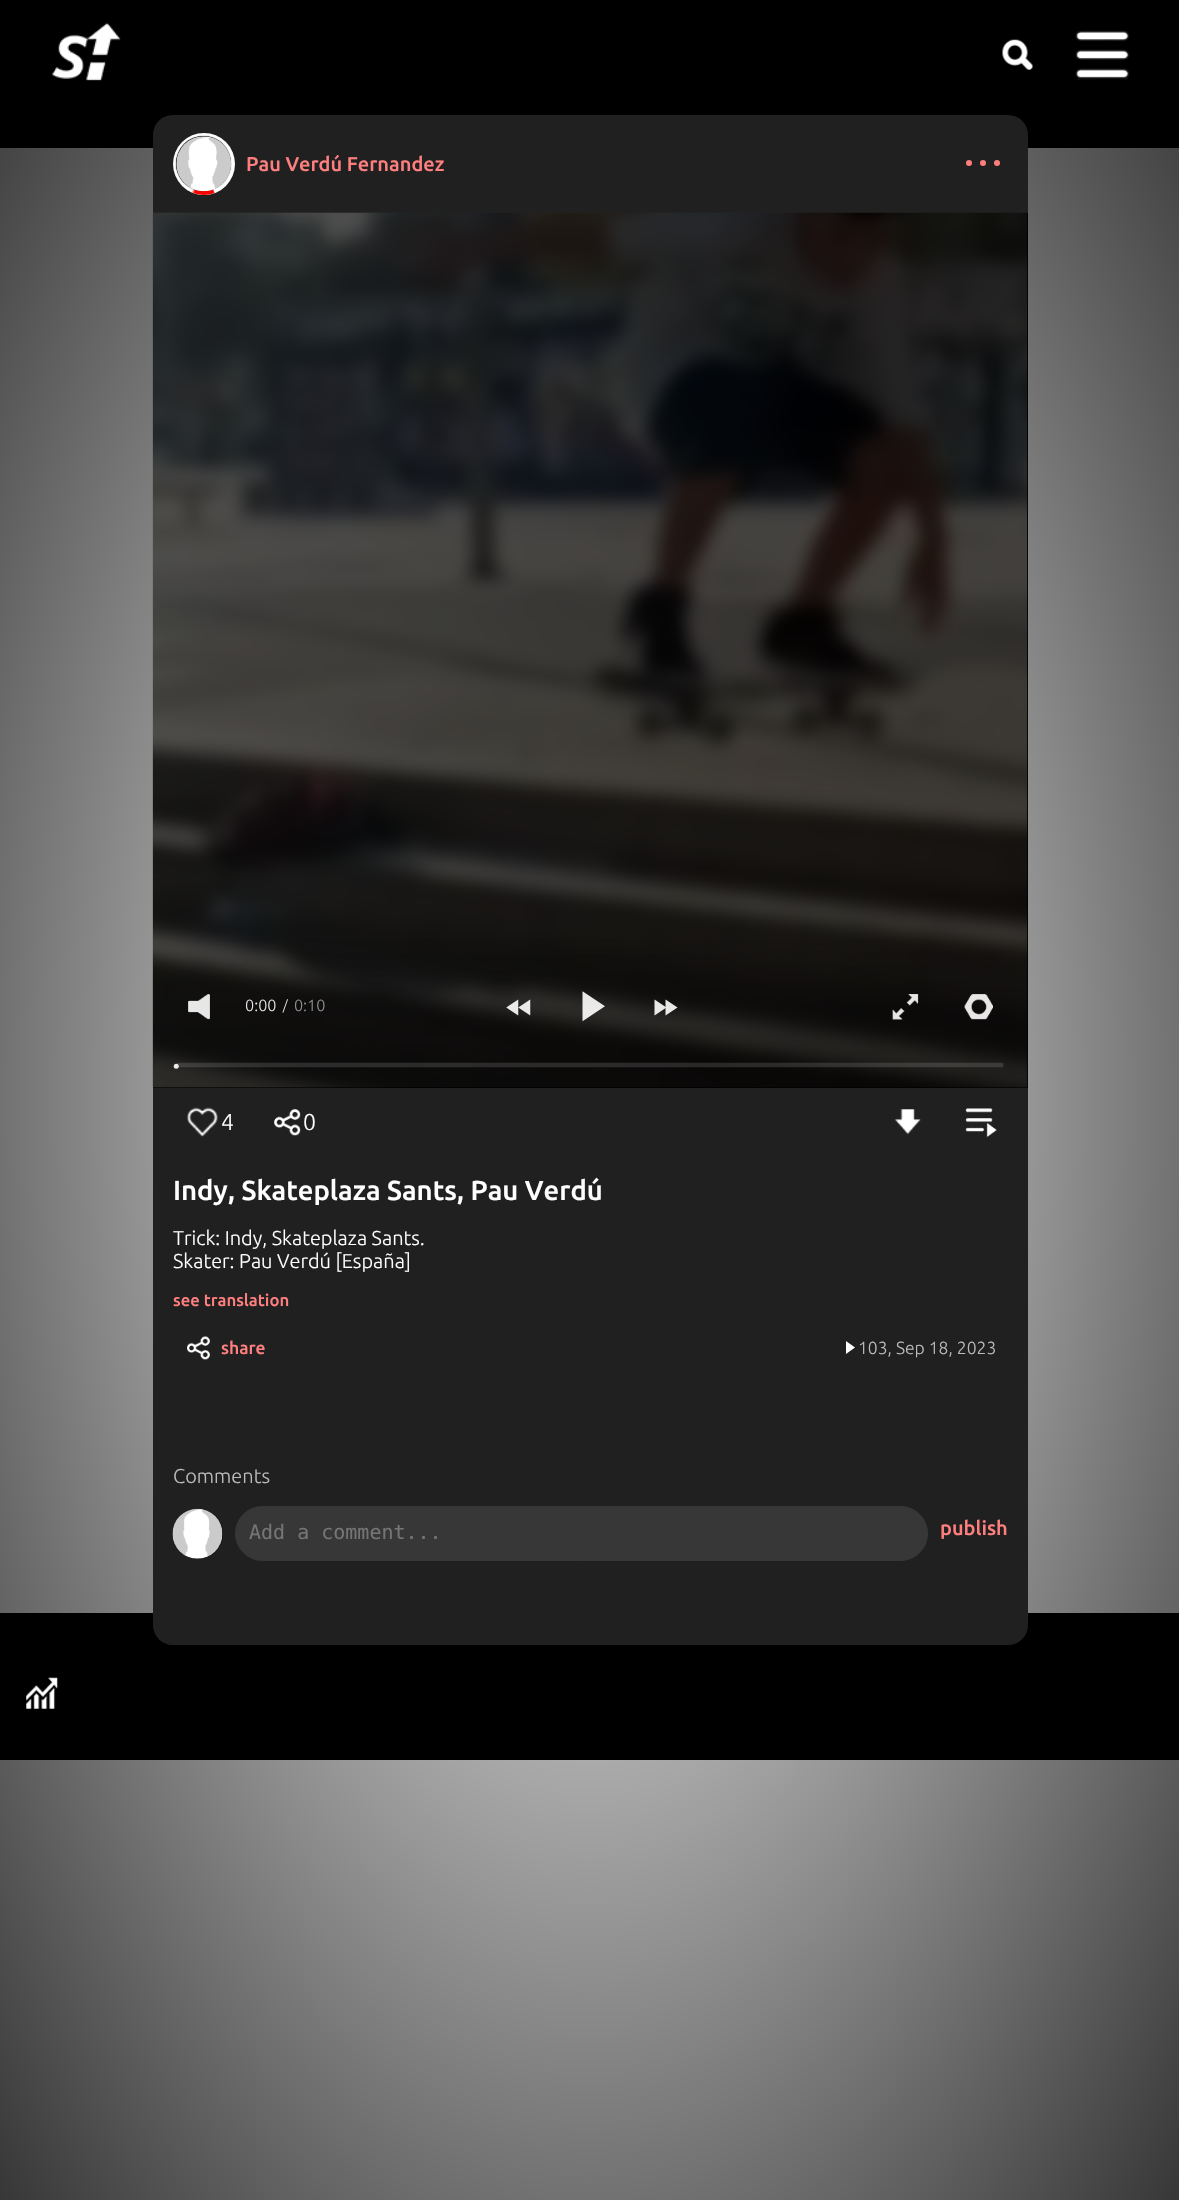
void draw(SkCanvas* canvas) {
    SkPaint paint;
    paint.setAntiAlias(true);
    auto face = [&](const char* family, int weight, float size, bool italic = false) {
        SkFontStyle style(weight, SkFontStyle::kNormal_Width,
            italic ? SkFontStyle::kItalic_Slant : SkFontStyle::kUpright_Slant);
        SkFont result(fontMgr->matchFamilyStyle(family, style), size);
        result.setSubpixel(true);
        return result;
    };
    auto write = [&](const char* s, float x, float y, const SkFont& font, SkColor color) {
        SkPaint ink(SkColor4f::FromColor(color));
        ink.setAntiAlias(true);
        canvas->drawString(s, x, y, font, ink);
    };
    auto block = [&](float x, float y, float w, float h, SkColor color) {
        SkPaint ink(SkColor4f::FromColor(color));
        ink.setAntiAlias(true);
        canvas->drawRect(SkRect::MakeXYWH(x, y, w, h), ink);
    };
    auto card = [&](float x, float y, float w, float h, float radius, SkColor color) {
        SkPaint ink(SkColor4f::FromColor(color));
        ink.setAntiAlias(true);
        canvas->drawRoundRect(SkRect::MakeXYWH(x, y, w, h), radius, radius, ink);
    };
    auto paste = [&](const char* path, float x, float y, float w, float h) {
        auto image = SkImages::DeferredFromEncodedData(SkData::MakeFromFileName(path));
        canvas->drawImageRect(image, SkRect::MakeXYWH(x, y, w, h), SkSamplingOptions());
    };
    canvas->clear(SK_ColorWHITE);
    {
        const SkColor colors[] = {SK_ColorWHITE, SkColorSetRGB(55, 55, 55)};
        const float stops[] = {0, 1};
        SkMatrix m = SkMatrix::Translate(590, 1100).preScale(834, 1556);
        paint.setShader(SkGradientShader::MakeRadial({0, 0}, 1, colors, stops, 2, SkTileMode::kClamp, 0, &m));
        paint.setAlpha(255);
    }
    canvas->drawRect(SkRect::MakeXYWH(0, 148, 1179, 2052), paint);
    block(0, 0, 1179, 148, SK_ColorBLACK);
    paste("pic1.png", 52, 23, 69, 58);
    paste("pic2.png", 1002, 39, 31, 31);
    paste("pic3.png", 1075, 30, 55, 50);
    block(0, 1613, 1179, 147, SK_ColorBLACK);
    card(153, 115, 875, 1530, 20, SkColorSetRGB(32, 32, 32));
    paint.setShader(nullptr);
    paint.setColor(SK_ColorWHITE);
    canvas->drawCircle(204, 164, 31, paint);
    paint.setColor(SkColorSetRGB(255, 127, 127));
    canvas->drawPath(SkPathBuilder().moveTo(204, 164).lineTo(193.5f, 193).lineTo(192.5f, 193).close().detach(), paint);
    paint.setColor(SkColorSetARGB(128, 255, 0, 0));
    canvas->drawPath(SkPathBuilder().moveTo(204, 164).lineTo(192.5f, 193).lineTo(192, 192.5f).close().detach(), paint);
    paint.setColor(SkColorSetRGB(255, 0, 0));
    canvas->drawPath(SkPathBuilder().moveTo(204, 164).lineTo(214.5f, 193).cubicTo(208, 195.5f, 200, 195.5f, 193.5f, 193).close().detach(), paint);
    paint.setColor(SkColorSetRGB(32, 32, 32));
    paint.setMaskFilter(SkMaskFilter::MakeBlur(kNormal_SkBlurStyle, 0.5f));
    canvas->drawRoundRect(SkRect::MakeXYWH(176, 136, 55, 55), 27.5f, 27.5f, paint);
    paint.setMaskFilter(nullptr);
    paint.setColor(SK_ColorBLACK);
    canvas->drawCircle(203.5f, 163.5f, 27.5f, paint);
    paste("pic4.png", 176, 136, 55, 56);
    auto kFont1 = face("Ubuntu", 500, 20);
    write("Pau Verdú Fernandez", 246, 171, kFont1, SkColorSetRGB(255, 127, 127));
    paint.setColor(SkColorSetRGB(255, 127, 127));
    canvas->drawCircle(969, 163, 3, paint);
    canvas->drawCircle(983, 163, 3, paint);
    canvas->drawCircle(997, 163, 3, paint);
    block(153, 213, 875, 875, SK_ColorBLACK);
    paste("pic5.png", 152, 212, 876, 876);
    paste("pic6.png", 187, 1107, 31, 30);
    auto kFont2 = face("Ubuntu", 300, 23);
    write("4", 221, 1130, kFont2, SK_ColorWHITE);
    paste("pic7.png", 274, 1109, 27, 27);
    write("0", 303, 1130, kFont2, SK_ColorWHITE);
    paste("pic8.png", 894, 1109, 27, 26);
    paste("pic9.png", 965, 1108, 32, 29);
    auto kFont3 = face("Ubuntu", 500, 27.5f);
    write("Indy, Skateplaza Sants, Pau Verdú", 173, 1200, kFont3, SK_ColorWHITE);
    auto kFont4 = face("Ubuntu", 300, 20);
    write("Trick: Indy, Skateplaza Sants.", 173, 1245, kFont4, SK_ColorWHITE);
    write("Skater: Pau Verdú [España]", 173, 1268, kFont4, SK_ColorWHITE);
    auto kFont5 = face("Ubuntu", 500, 16.75f);
    write("see translation", 173, 1306, kFont5, SkColorSetRGB(255, 127, 127));
    paste("pic10.png", 187, 1336, 23, 24);
    auto kFont6 = face("Ubuntu", 500, 17.5f);
    write("share", 221, 1354, kFont6, SkColorSetRGB(255, 127, 127));
    paint.setColor(SK_ColorWHITE);
    canvas->drawPath(SkPathBuilder().moveTo(846, 1354).lineTo(846, 1341).lineTo(855, 1347.5f).close().detach(), paint);
    auto kFont7 = face("Ubuntu", 300, 17.5f);
    write("103, Sep 18, 2023", 858, 1354, kFont7, SkColorSetRGB(187, 187, 187));
    write("Comments", 173, 1483, kFont4, SkColorSetRGB(187, 187, 187));
    paint.setColor(SK_ColorBLACK);
    canvas->drawCircle(198, 1534, 25, paint);
    paste("pic11.png", 172, 1508, 51, 51);
    paint.setColor(SkColorSetRGB(55, 55, 55));
    canvas->drawRoundRect(SkRect::MakeXYWH(235.5f, 1506.5f, 692, 54), 27, 27, paint);
    paint.setStyle(SkPaint::kStroke_Style);
    paint.setStrokeWidth(1);
    canvas->drawRoundRect(SkRect::MakeXYWH(235.5f, 1506.5f, 692, 54), 27, 27, paint);
    auto kFont8 = face("DejaVu Sans Mono", 400, 20);
    write("Add a comment...", 249, 1539, kFont8, SkColorSetRGB(117, 117, 117));
    write("publish", 940, 1535, kFont1, SkColorSetRGB(255, 127, 127));
    paste("pic12.png", 26, 1677, 32, 32);
}
